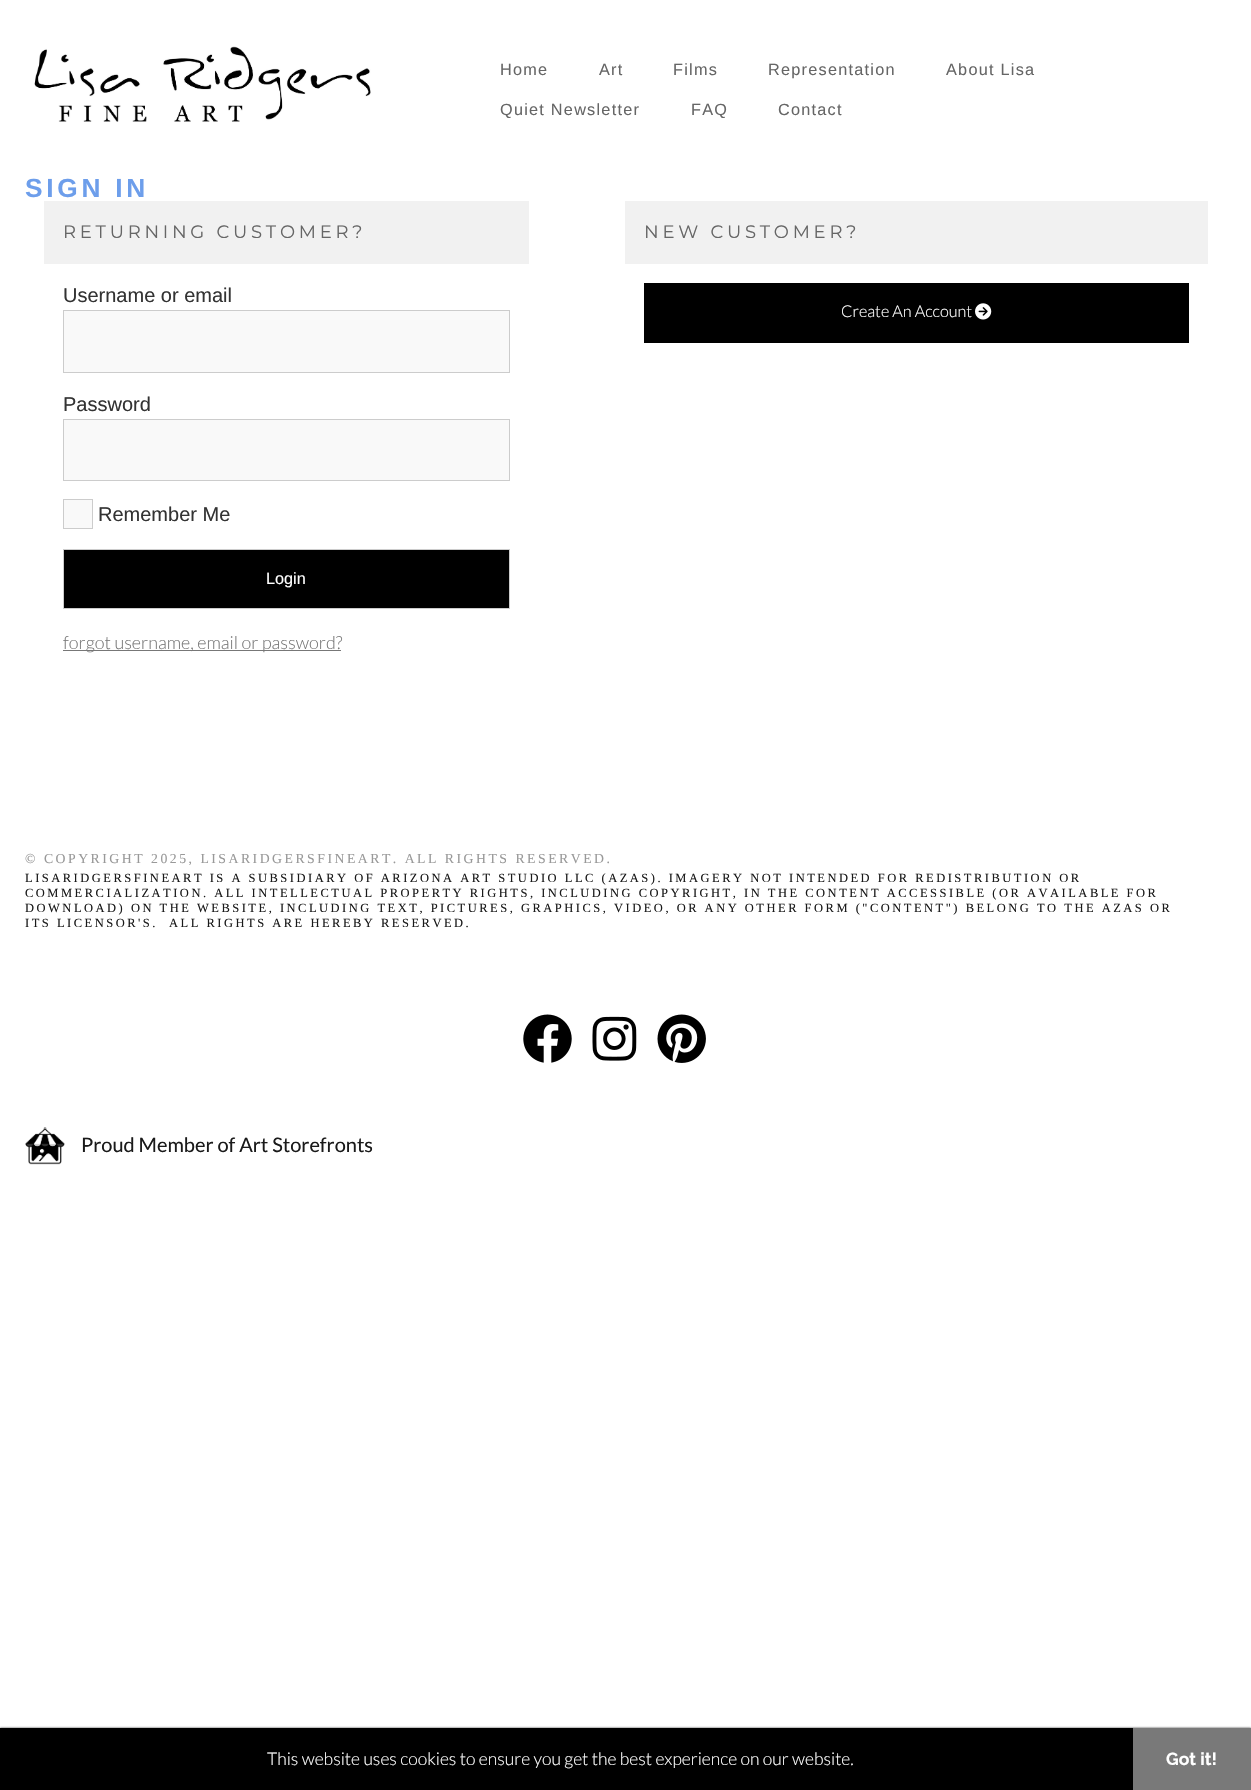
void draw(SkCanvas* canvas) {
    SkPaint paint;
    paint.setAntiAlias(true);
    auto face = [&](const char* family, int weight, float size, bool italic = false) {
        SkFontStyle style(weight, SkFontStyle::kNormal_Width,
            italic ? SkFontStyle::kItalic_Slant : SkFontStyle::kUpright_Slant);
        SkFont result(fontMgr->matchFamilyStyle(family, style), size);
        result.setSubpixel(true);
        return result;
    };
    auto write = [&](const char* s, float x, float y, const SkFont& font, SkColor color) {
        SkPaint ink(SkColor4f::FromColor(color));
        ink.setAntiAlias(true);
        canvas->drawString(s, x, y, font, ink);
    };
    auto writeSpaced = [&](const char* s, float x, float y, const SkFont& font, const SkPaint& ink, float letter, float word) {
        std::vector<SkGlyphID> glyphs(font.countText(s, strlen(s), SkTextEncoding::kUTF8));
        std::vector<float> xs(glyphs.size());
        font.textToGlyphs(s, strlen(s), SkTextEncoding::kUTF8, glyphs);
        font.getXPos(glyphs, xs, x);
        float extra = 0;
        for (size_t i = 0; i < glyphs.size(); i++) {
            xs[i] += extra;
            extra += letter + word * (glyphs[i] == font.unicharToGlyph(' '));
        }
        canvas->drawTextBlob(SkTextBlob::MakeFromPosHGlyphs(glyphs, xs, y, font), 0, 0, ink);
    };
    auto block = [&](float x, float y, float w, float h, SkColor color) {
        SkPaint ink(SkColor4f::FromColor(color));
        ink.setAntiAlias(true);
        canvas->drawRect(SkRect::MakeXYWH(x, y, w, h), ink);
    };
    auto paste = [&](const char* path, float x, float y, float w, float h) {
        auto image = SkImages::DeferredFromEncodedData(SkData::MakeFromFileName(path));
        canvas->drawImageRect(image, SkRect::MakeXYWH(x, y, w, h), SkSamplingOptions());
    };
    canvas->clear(SK_ColorWHITE);
    paste("pic1.png", 34, 46, 337, 76);
    auto kFont1 = face("Liberation Sans", 400, 16.25f);
    paint.setColor(SkColorSetRGB(102, 102, 102));
    writeSpaced("Home", 500, 75, kFont1, paint, 1.25f, 0);
    writeSpaced("Art", 599, 75, kFont1, paint, 1.25f, 0);
    writeSpaced("Films", 673, 75, kFont1, paint, 1.25f, 0);
    writeSpaced("Representation", 768, 75, kFont1, paint, 1.25f, 0);
    writeSpaced("About Lisa", 946, 75, kFont1, paint, 1.25f, 0);
    writeSpaced("Quiet Newsletter", 500, 115, kFont1, paint, 1.25f, 0);
    writeSpaced("FAQ", 691, 115, kFont1, paint, 1.25f, 0);
    writeSpaced("Contact", 778, 115, kFont1, paint, 1.25f, 0);
    auto kFont2 = face("Liberation Sans", 700, 26.25f);
    paint.setColor(SkColorSetRGB(109, 158, 235));
    writeSpaced("SIGN IN", 25, 197, kFont2, paint, 3.75f, 0);
    block(44, 201, 485, 63, SkColorSetRGB(241, 241, 241));
    auto kFont3 = face("Montserrat", 400, 18);
    paint.setColor(SkColorSetRGB(102, 102, 102));
    writeSpaced("RETURNING CUSTOMER?", 63, 238, kFont3, paint, 3.75f, 0);
    auto kFont4 = face("Liberation Sans", 400, 20);
    write("Username or email", 63, 302, kFont4, SkColorSetRGB(51, 51, 51));
    paint.setColor(SkColorSetRGB(249, 249, 249));
    canvas->drawRect(SkRect::MakeXYWH(63.5f, 310.5f, 446, 62), paint);
    paint.setStyle(SkPaint::kStroke_Style);
    paint.setStrokeWidth(1);
    paint.setColor(SkColorSetRGB(204, 204, 204));
    canvas->drawRect(SkRect::MakeXYWH(63.5f, 310.5f, 446, 62), paint);
    write("Password", 63, 411, kFont4, SkColorSetRGB(51, 51, 51));
    paint.setStyle(SkPaint::kFill_Style);
    paint.setColor(SkColorSetRGB(249, 249, 249));
    canvas->drawRect(SkRect::MakeXYWH(63.5f, 419.5f, 446, 61), paint);
    paint.setStyle(SkPaint::kStroke_Style);
    paint.setColor(SkColorSetRGB(204, 204, 204));
    canvas->drawRect(SkRect::MakeXYWH(63.5f, 419.5f, 446, 61), paint);
    paint.setStyle(SkPaint::kFill_Style);
    paint.setColor(SkColorSetRGB(249, 249, 249));
    canvas->drawRect(SkRect::MakeXYWH(63.5f, 499.5f, 29, 29), paint);
    paint.setStyle(SkPaint::kStroke_Style);
    paint.setColor(SkColorSetRGB(204, 204, 204));
    canvas->drawRect(SkRect::MakeXYWH(63.5f, 499.5f, 29, 29), paint);
    write("Remember Me", 98, 521, kFont4, SkColorSetRGB(51, 51, 51));
    paint.setStyle(SkPaint::kFill_Style);
    paint.setColor(SK_ColorBLACK);
    canvas->drawRect(SkRect::MakeXYWH(63.5f, 549.5f, 446, 59), paint);
    paint.setStyle(SkPaint::kStroke_Style);
    paint.setColor(SkColorSetRGB(204, 204, 204));
    canvas->drawRect(SkRect::MakeXYWH(63.5f, 549.5f, 446, 59), paint);
    write("Login", 266, 584, kFont1, SK_ColorWHITE);
    block(63, 650, 278, 1, SkColorSetRGB(119, 119, 119));
    auto kFont5 = face("Lato", 300, 18);
    write("forgot username, email or password?", 63, 649, kFont5, SkColorSetRGB(119, 119, 119));
    block(625, 201, 583, 63, SkColorSetRGB(241, 241, 241));
    paint.setStyle(SkPaint::kFill_Style);
    paint.setColor(SkColorSetRGB(102, 102, 102));
    writeSpaced("NEW CUSTOMER?", 644, 238, kFont3, paint, 3.75f, 0);
    block(644, 283, 545, 60, SK_ColorBLACK);
    auto kFont6 = face("Lato", 300, 16.25f);
    write("Create An Account", 841, 317, kFont6, SK_ColorWHITE);
    paste("pic2.png", 975, 303, 17, 17);
    auto kFont7 = face("Liberation Serif", 400, 13.75f);
    paint.setColor(SkColorSetRGB(153, 153, 153));
    writeSpaced("© COPYRIGHT 2025, LISARIDGERSFINEART. ALL RIGHTS RESERVED.", 25, 863, kFont7, paint, 2.5f, 0);
    auto kFont8 = face("Liberation Serif", 400, 12.5f);
    paint.setColor(SkColorSetRGB(26, 26, 26));
    writeSpaced("LISARIDGERSFINEART IS A SUBSIDIARY OF ARIZONA ART STUDIO LLC (AZAS). IMAGERY NOT INTENDED FOR REDISTRIBUTION OR", 25, 882, kFont8, paint, 2.5f, 0);
    writeSpaced("COMMERCIALIZATION. ALL INTELLECTUAL PROPERTY RIGHTS, INCLUDING COPYRIGHT, IN THE CONTENT ACCESSIBLE (OR AVAILABLE FOR", 25, 897, kFont8, paint, 2.5f, 0);
    writeSpaced("DOWNLOAD) ON THE WEBSITE, INCLUDING TEXT, PICTURES, GRAPHICS, VIDEO, OR ANY OTHER FORM (\"CONTENT\") BELONG TO THE AZAS OR", 25, 912, kFont8, paint, 2.5f, 0);
    writeSpaced("ITS LICENSOR'S.  ALL RIGHTS ARE HEREBY RESERVED.", 25, 927, kFont8, paint, 2.5f, 0);
    paste("pic3.png", 523, 1014, 49, 49);
    paste("pic4.png", 592, 1016, 45, 45);
    paste("pic5.png", 657, 1014, 49, 49);
    paste("pic6.png", 25, 1127, 40, 38);
    auto kFont9 = face("Lato", 400, 20);
    write("Proud Member of Art Storefronts", 81, 1152, kFont9, SkColorSetRGB(26, 26, 26));
    paint.setColor(SkColorSetRGB(51, 51, 51));
    paint.setMaskFilter(SkMaskFilter::MakeBlur(kNormal_SkBlurStyle, 1));
    canvas->drawRect(SkRect::MakeXYWH(0, 1728, 1251, 62), paint);
    paint.setMaskFilter(nullptr);
    block(0, 1728, 1133, 62, SK_ColorBLACK);
    auto kFont10 = face("Lato", 300, 17.5f);
    write("This website uses cookies to ensure you get the best experience on our website.", 267, 1765, kFont10, SK_ColorWHITE);
    block(1133, 1728, 118, 62, SkColorSetRGB(121, 121, 121));
    auto kFont11 = face("Raleway", 700, 17.5f);
    write("Got it!", 1166, 1765, kFont11, SK_ColorWHITE);
}
